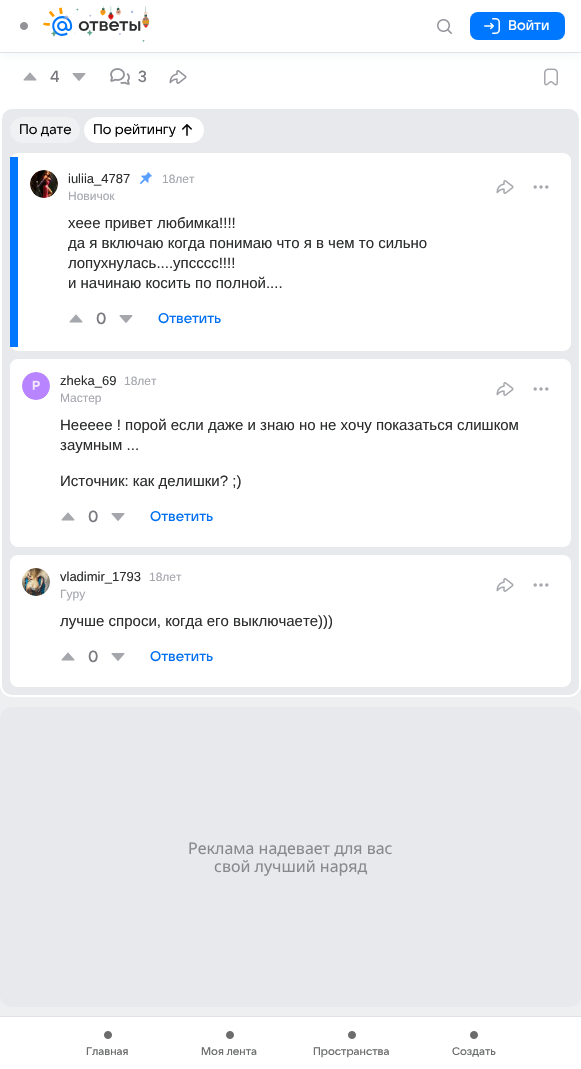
void draw(SkCanvas* canvas) {
    SkPaint paint;
    paint.setAntiAlias(true);
    auto face = [&](const char* family, int weight, float size, bool italic = false) {
        SkFontStyle style(weight, SkFontStyle::kNormal_Width,
            italic ? SkFontStyle::kItalic_Slant : SkFontStyle::kUpright_Slant);
        SkFont result(fontMgr->matchFamilyStyle(family, style), size);
        result.setSubpixel(true);
        return result;
    };
    auto write = [&](const char* s, float x, float y, const SkFont& font, SkColor color) {
        SkPaint ink(SkColor4f::FromColor(color));
        ink.setAntiAlias(true);
        canvas->drawString(s, x, y, font, ink);
    };
    auto block = [&](float x, float y, float w, float h, SkColor color) {
        SkPaint ink(SkColor4f::FromColor(color));
        ink.setAntiAlias(true);
        canvas->drawRect(SkRect::MakeXYWH(x, y, w, h), ink);
    };
    auto card = [&](float x, float y, float w, float h, float radius, SkColor color) {
        SkPaint ink(SkColor4f::FromColor(color));
        ink.setAntiAlias(true);
        canvas->drawRoundRect(SkRect::MakeXYWH(x, y, w, h), radius, radius, ink);
    };
    auto paste = [&](const char* path, float x, float y, float w, float h) {
        auto image = SkImages::DeferredFromEncodedData(SkData::MakeFromFileName(path));
        canvas->drawImageRect(image, SkRect::MakeXYWH(x, y, w, h), SkSamplingOptions());
    };
    canvas->clear(SkColorSetRGB(238, 239, 241));
    card(0, -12, 581, 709, 12, SK_ColorWHITE);
    paste("pic7.png", 110, 68, 20, 17);
    paste("pic8.png", 169, 70, 18, 14);
    paste("pic9.png", 544, 68, 14, 18);
    paint.setColor(SkColorSetARGB(15, 0, 16, 61));
    paint.setMaskFilter(SkMaskFilter::MakeBlur(kNormal_SkBlurStyle, 6));
    canvas->drawRect(SkRect::MakeXYWH(0, 0, 581, 53), paint);
    paint.setMaskFilter(nullptr);
    block(0, 0, 581, 52, SK_ColorWHITE);
    block(0, 52, 581, 1, SkColorSetRGB(224, 226, 232));
    paste("pic1.png", 20, 22, 8, 8);
    paste("pic2.png", 43, 6, 107, 36);
    paste("pic3.png", 437, 19, 15, 15);
    card(470, 12, 95, 28, 8, SkColorSetRGB(0, 119, 255));
    paste("pic4.png", 484, 18, 16, 16);
    auto kFont1 = face("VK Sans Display", 500, 14);
    write("Войти", 508, 30, kFont1, SK_ColorWHITE);
    paste("pic5.png", 23, 72, 14, 9);
    auto kFont2 = face("VK Sans Display", 500, 16);
    write("4", 50, 82, kFont2, SkColorSetRGB(121, 122, 128));
    paste("pic6.png", 72, 73, 14, 8);
    write("3", 138, 82, kFont2, SkColorSetRGB(121, 122, 128));
    card(2, 109, 577, 586, 10, SkColorSetRGB(231, 233, 236));
    card(10, 117, 70, 26, 13, SkColorSetRGB(240, 241, 243));
    auto kFont3 = face("VK Sans Display", 400, 14);
    write("По дате", 19, 134, kFont3, SK_ColorBLACK);
    card(84, 117, 120, 26, 13, SK_ColorWHITE);
    write("По рейтингу", 93, 134, kFont3, SK_ColorBLACK);
    paste("pic10.png", 182, 124, 10, 12);
    card(10, 153, 561, 198, 8, SK_ColorWHITE);
    block(10, 157, 8, 190, SkColorSetRGB(0, 119, 255));
    paint.setColor(SkColorSetRGB(240, 241, 243));
    canvas->drawCircle(44, 184, 14, paint);
    paste("pic11.png", 30, 170, 28, 28);
    auto kFont4 = face("Liberation Sans", 400, 13);
    write("iuliia_4787", 68, 183, kFont4, SkColorSetRGB(44, 45, 46));
    auto kFont5 = face("Liberation Sans", 400, 12);
    write("Новичок", 68, 200, kFont5, SkColorSetRGB(165, 167, 173));
    paste("pic12.png", 140, 172, 12, 12);
    write("18лет", 162, 183, kFont5, SkColorSetRGB(165, 167, 173));
    paste("pic13.png", 496, 180, 18, 14);
    paste("pic14.png", 533, 185, 16, 4);
    auto kFont6 = face("Liberation Sans", 400, 15);
    write("хеее привет любимка!!!!", 68, 228, kFont6, SkColorSetRGB(44, 45, 46));
    write("да я включаю когда понимаю что я в чем то сильно", 68, 248, kFont6, SkColorSetRGB(44, 45, 46));
    write("лопухнулась....упсссс!!!!", 68, 268, kFont6, SkColorSetRGB(44, 45, 46));
    write("и начинаю косить по полной....", 68, 288, kFont6, SkColorSetRGB(44, 45, 46));
    paste("pic5.png", 69, 314, 14, 9);
    write("0", 96, 324, kFont2, SkColorSetRGB(121, 122, 128));
    paste("pic6.png", 119, 315, 14, 8);
    write("Ответить", 158, 323, kFont1, SkColorSetRGB(0, 112, 240));
    card(10, 359, 561, 188, 8, SK_ColorWHITE);
    canvas->drawCircle(36, 386, 14, paint);
    paste("pic15.png", 22, 372, 28, 28);
    write("zheka_69", 60, 385, kFont4, SkColorSetRGB(44, 45, 46));
    write("Мастер", 60, 402, kFont5, SkColorSetRGB(165, 167, 173));
    write("18лет", 124, 385, kFont5, SkColorSetRGB(165, 167, 173));
    paste("pic13.png", 496, 382, 18, 14);
    paste("pic14.png", 533, 387, 16, 4);
    write("Неееее ! порой если даже и знаю но не хочу показаться слишком", 60, 430, kFont6, SkColorSetRGB(44, 45, 46));
    write("заумным ...", 60, 450, kFont6, SkColorSetRGB(44, 45, 46));
    write("Источник: как делишки? ;)", 60, 486, kFont6, SkColorSetRGB(44, 45, 46));
    paste("pic5.png", 61, 512, 14, 9);
    write("0", 88, 522, kFont2, SkColorSetRGB(121, 122, 128));
    paste("pic6.png", 111, 513, 14, 8);
    write("Ответить", 150, 521, kFont1, SkColorSetRGB(0, 112, 240));
    card(10, 555, 561, 132, 8, SK_ColorWHITE);
    canvas->drawCircle(36, 582, 14, paint);
    paste("pic16.png", 22, 568, 28, 28);
    write("vladimir_1793", 60, 581, kFont4, SkColorSetRGB(44, 45, 46));
    write("Гуру", 60, 598, kFont5, SkColorSetRGB(165, 167, 173));
    write("18лет", 149, 581, kFont5, SkColorSetRGB(165, 167, 173));
    paste("pic13.png", 496, 578, 18, 14);
    paste("pic14.png", 533, 583, 16, 4);
    write("лучше спроси, когда его выключаете)))", 60, 626, kFont6, SkColorSetRGB(44, 45, 46));
    paste("pic5.png", 61, 652, 14, 9);
    write("0", 88, 662, kFont2, SkColorSetRGB(121, 122, 128));
    paste("pic6.png", 111, 653, 14, 8);
    write("Ответить", 150, 661, kFont1, SkColorSetRGB(0, 112, 240));
    card(0, 707, 581, 300, 12, SkColorSetRGB(231, 233, 237));
    auto kFont7 = face("Noto Sans", 400, 16);
    write("Реклама надевает для вас", 188, 854, kFont7, SkColorSetRGB(135, 137, 143));
    write("свой лучший наряд", 214, 872, kFont7, SkColorSetRGB(135, 137, 143));
    block(0, 1017, 581, 52, SK_ColorWHITE);
    block(0, 1016, 581, 1, SkColorSetRGB(224, 226, 232));
    paste("pic17.png", 104, 1031, 8, 8);
    auto kFont8 = face("VK Sans Display", 500, 11);
    write("Главная", 86, 1055, kFont8, SkColorSetRGB(107, 108, 109));
    paste("pic17.png", 226, 1031, 8, 8);
    write("Моя лента", 201, 1055, kFont8, SkColorSetRGB(107, 108, 109));
    paste("pic17.png", 348, 1031, 8, 8);
    write("Пространства", 313, 1055, kFont8, SkColorSetRGB(107, 108, 109));
    paste("pic17.png", 470, 1031, 8, 8);
    write("Создать", 452, 1055, kFont8, SkColorSetRGB(107, 108, 109));
}
